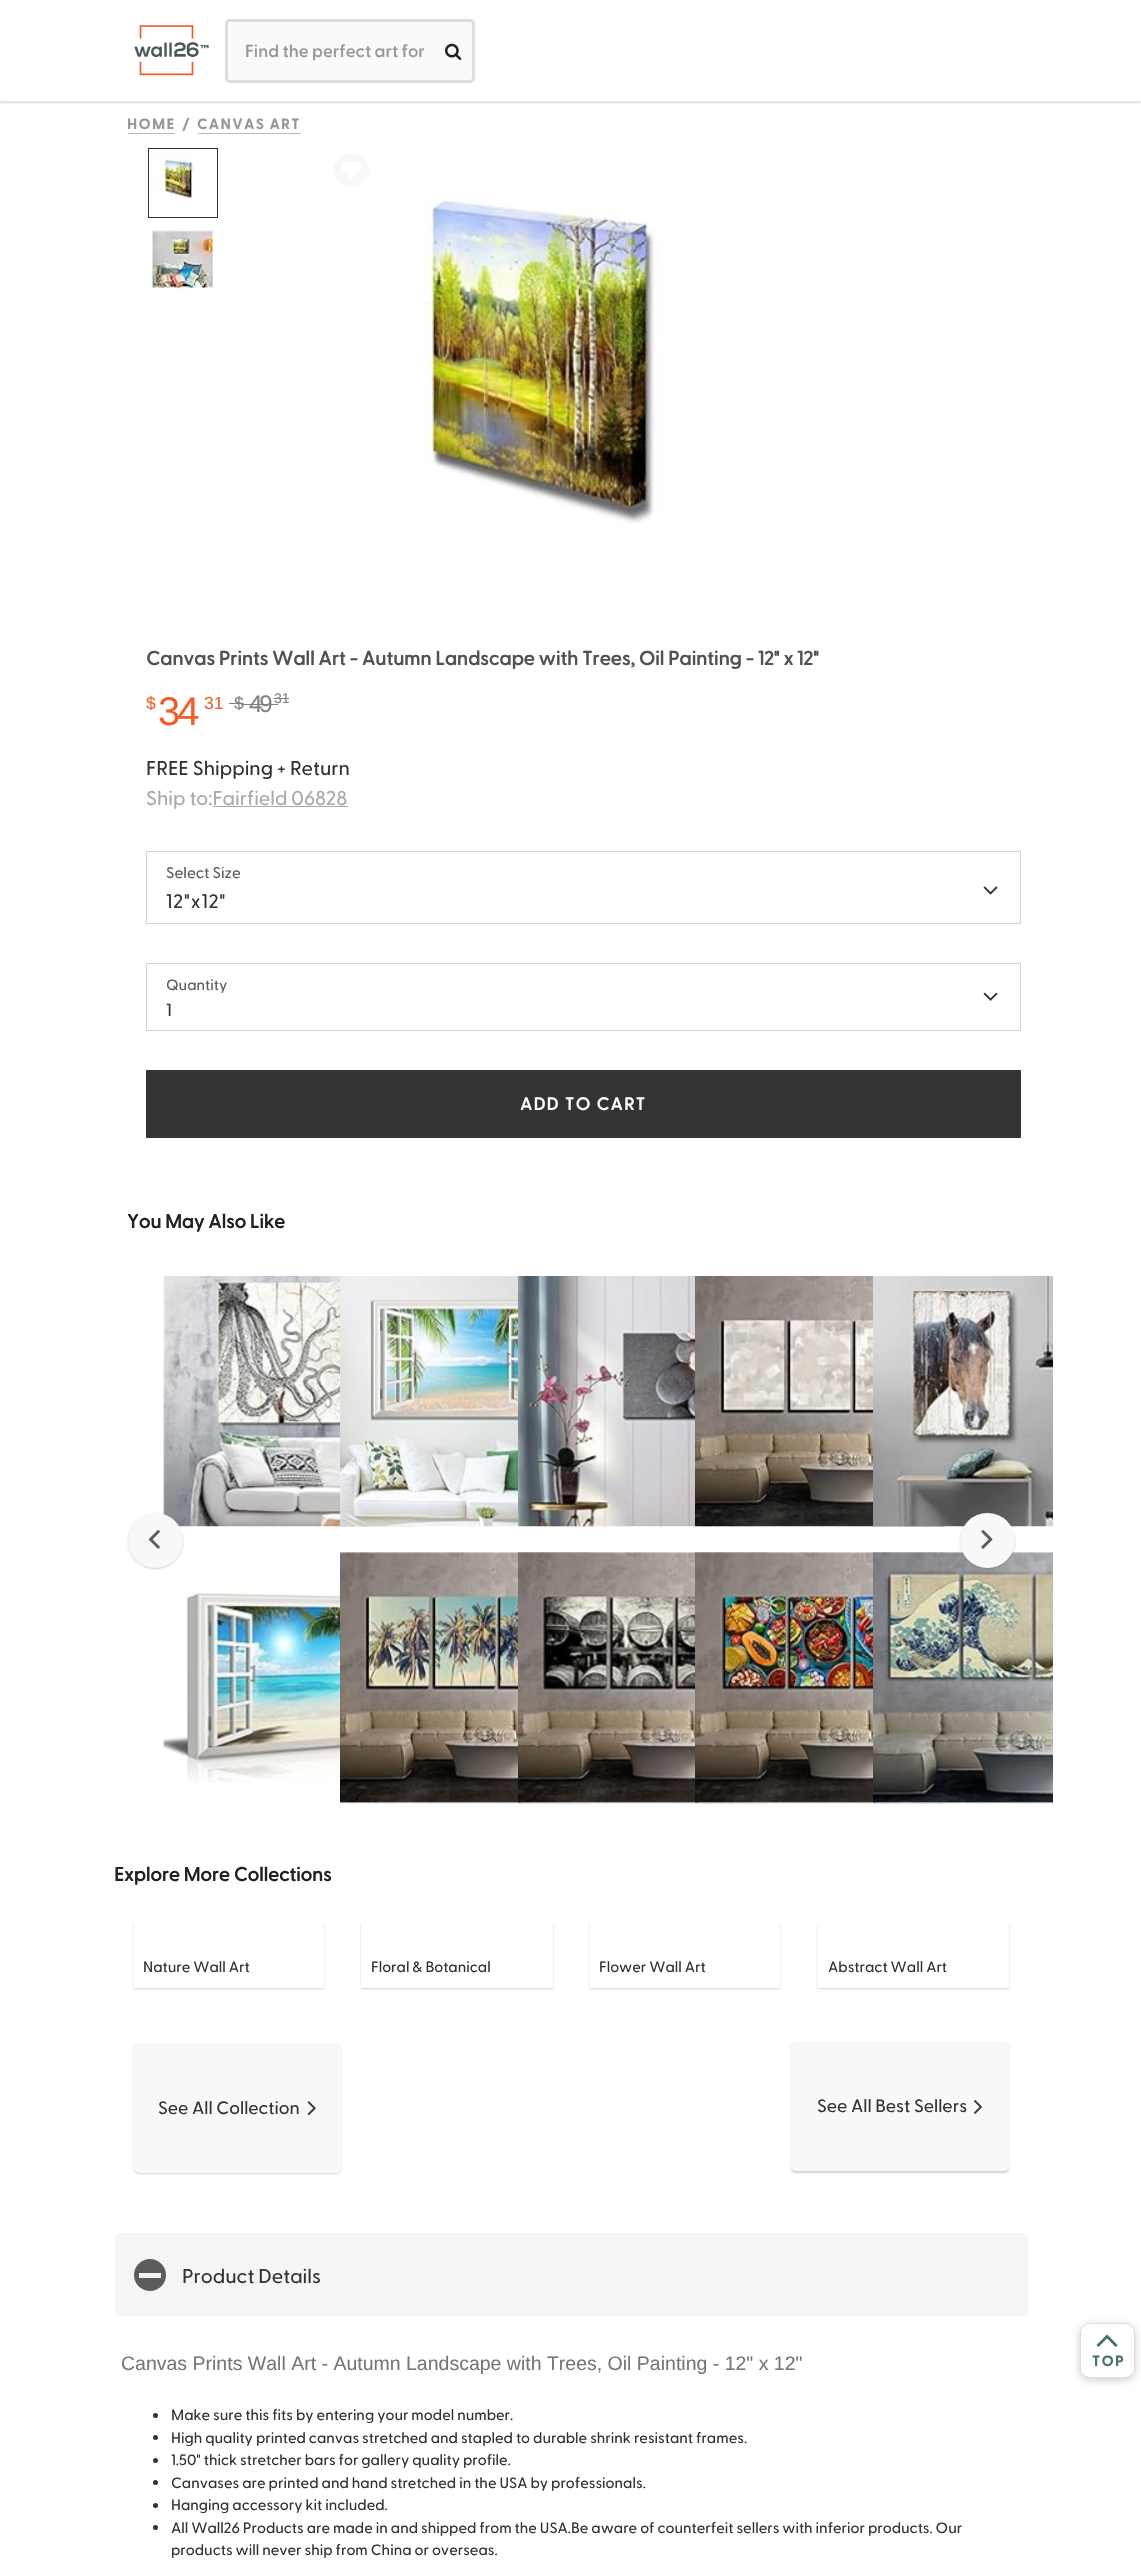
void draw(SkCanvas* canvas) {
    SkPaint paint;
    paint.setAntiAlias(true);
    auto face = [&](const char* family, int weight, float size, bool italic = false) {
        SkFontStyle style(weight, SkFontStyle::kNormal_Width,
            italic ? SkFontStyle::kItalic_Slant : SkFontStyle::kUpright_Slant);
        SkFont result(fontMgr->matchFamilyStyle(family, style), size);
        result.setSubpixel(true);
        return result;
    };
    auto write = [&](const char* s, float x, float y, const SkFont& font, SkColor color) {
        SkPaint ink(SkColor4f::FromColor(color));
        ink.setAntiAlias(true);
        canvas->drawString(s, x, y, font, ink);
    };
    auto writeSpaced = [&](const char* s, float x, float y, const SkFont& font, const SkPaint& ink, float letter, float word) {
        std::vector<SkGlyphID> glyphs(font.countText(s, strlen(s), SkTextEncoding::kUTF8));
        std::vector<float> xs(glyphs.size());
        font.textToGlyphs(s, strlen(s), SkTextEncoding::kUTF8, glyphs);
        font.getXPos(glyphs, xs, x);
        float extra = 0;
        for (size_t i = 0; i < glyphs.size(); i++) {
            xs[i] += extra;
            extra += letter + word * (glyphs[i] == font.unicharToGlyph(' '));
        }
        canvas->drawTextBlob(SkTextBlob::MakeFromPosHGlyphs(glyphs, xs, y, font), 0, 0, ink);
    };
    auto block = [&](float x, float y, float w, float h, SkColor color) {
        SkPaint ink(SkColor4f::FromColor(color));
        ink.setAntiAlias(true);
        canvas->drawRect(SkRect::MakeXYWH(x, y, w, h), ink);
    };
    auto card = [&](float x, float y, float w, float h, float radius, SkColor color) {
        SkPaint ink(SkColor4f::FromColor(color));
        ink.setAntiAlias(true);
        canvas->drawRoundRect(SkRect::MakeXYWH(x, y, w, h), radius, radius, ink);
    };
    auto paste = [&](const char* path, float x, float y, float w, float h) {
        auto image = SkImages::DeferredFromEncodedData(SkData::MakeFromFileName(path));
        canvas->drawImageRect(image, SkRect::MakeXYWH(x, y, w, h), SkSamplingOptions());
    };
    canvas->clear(SK_ColorWHITE);
    canvas->save();
    canvas->clipRect(SkRect::MakeXYWH(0, 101, 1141, 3));
    paint.setColor(SkColorSetARGB(38, 34, 36, 38));
    paint.setMaskFilter(SkMaskFilter::MakeBlur(kNormal_SkBlurStyle, 1));
    canvas->drawRect(SkRect::MakeXYWH(0, 1, 1141, 102), paint);
    paint.setMaskFilter(nullptr);
    canvas->restore();
    paste("pic1.png", 134, 25, 75, 51);
    paint.setColor(SkColorSetRGB(250, 250, 250));
    canvas->drawRoundRect(SkRect::MakeXYWH(226.5f, 20.5f, 247, 61), 3.5f, 3.5f, paint);
    paint.setStyle(SkPaint::kStroke_Style);
    paint.setStrokeWidth(3);
    paint.setColor(SkColorSetRGB(221, 221, 221));
    canvas->drawRoundRect(SkRect::MakeXYWH(226.5f, 20.5f, 247, 61), 3.5f, 3.5f, paint);
    auto kFont1 = face("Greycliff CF", 600, 17.5f);
    write("Find the perfect art for", 245, 57, kFont1, SkColorSetRGB(152, 152, 152));
    paste("pic2.png", 445, 43, 17, 17);
    auto kFont2 = face("Greycliff CF", 700, 15);
    paint.setStyle(SkPaint::kFill_Style);
    paint.setColor(SkColorSetRGB(152, 152, 152));
    writeSpaced("HOME", 127, 129, kFont2, paint, 1.25f, 0);
    block(128, 133, 47, 1, SkColorSetRGB(187, 187, 187));
    writeSpaced("/", 182, 129, kFont2, paint, 1.25f, 0);
    writeSpaced("CANVAS ART", 197, 129, kFont2, paint, 1.25f, 0);
    block(198, 133, 103, 1, SkColorSetRGB(187, 187, 187));
    paint.setStyle(SkPaint::kStroke_Style);
    paint.setStrokeWidth(1);
    paint.setColor(SkColorSetRGB(51, 51, 51));
    canvas->drawRect(SkRect::MakeXYWH(148.5f, 148.5f, 69, 69), paint);
    paste("pic3.png", 152, 152, 42, 55);
    paste("pic4.png", 152, 229, 61, 60);
    card(334, 154, 35, 32, 16, SkColorSetRGB(248, 248, 248));
    paste("pic5.png", 341, 162, 20, 17);
    paste("pic6.png", 423, 199, 238, 325);
    auto kFont3 = face("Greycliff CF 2", 700, 19.5f);
    write("Canvas Prints Wall Art - Autumn Landscape with Trees, Oil Painting - 12\" x 12\"", 146, 665, kFont3, SkColorSetRGB(82, 82, 82));
    auto kFont4 = face("Liberation Sans", 400, 17.5f);
    write("$", 146, 709, kFont4, SkColorSetRGB(241, 94, 43));
    auto kFont5 = face("Liberation Sans", 400, 40);
    paint.setStyle(SkPaint::kFill_Style);
    paint.setColor(SkColorSetRGB(241, 94, 43));
    writeSpaced("34", 158, 725, kFont5, paint, -3, 0);
    write("31", 204, 709, kFont4, SkColorSetRGB(241, 94, 43));
    write("$", 234, 709, kFont4, SkColorSetRGB(128, 128, 128));
    block(229, 703, 15, 1, SkColorSetRGB(128, 128, 128));
    auto kFont6 = face("Liberation Sans", 400, 24);
    paint.setColor(SkColorSetRGB(128, 128, 128));
    writeSpaced("49", 249, 712, kFont6, paint, -3, 0);
    block(241, 704, 37, 1, SkColorSetRGB(128, 128, 128));
    auto kFont7 = face("Liberation Sans", 400, 14);
    write("31", 274, 703, kFont7, SkColorSetRGB(128, 128, 128));
    block(274, 698, 15, 1, SkColorSetRGB(128, 128, 128));
    auto kFont8 = face("Greycliff CF", 500, 20);
    write("FREE Shipping + Return", 146, 775, kFont8, SkColorSetRGB(51, 51, 51));
    write("Ship to:Fairfield 06828", 146, 805, kFont8, SkColorSetRGB(169, 169, 169));
    block(213, 806, 135, 1, SkColorSetRGB(169, 169, 169));
    paint.setStyle(SkPaint::kStroke_Style);
    paint.setColor(SkColorSetRGB(211, 211, 211));
    canvas->drawRect(SkRect::MakeXYWH(146.5f, 851.5f, 874, 72), paint);
    auto kFont9 = face("Greycliff CF", 500, 15.5f);
    write("Select Size", 166, 878, kFont9, SkColorSetRGB(92, 92, 92));
    auto kFont10 = face("Greycliff CF", 500, 19.5f);
    paint.setStyle(SkPaint::kFill_Style);
    paint.setColor(SkColorSetRGB(51, 51, 51));
    writeSpaced("12\"x12\"", 166, 908, kFont10, paint, 1, 0);
    paste("pic7.png", 983, 886, 15, 9);
    paint.setStyle(SkPaint::kStroke_Style);
    paint.setColor(SkColorSetRGB(211, 211, 211));
    canvas->drawRect(SkRect::MakeXYWH(146.5f, 963.5f, 874, 67), paint);
    auto kFont11 = face("Greycliff CF", 500, 15);
    write("Quantity", 166, 990, kFont11, SkColorSetRGB(92, 92, 92));
    auto kFont12 = face("Greycliff CF", 500, 17.5f);
    paint.setStyle(SkPaint::kFill_Style);
    paint.setColor(SkColorSetRGB(51, 51, 51));
    writeSpaced("1", 166, 1016, kFont12, paint, 1, 0);
    paste("pic8.png", 983, 992, 15, 9);
    card(146, 1070, 875, 68, 1, SkColorSetRGB(51, 51, 51));
    auto kFont13 = face("Greycliff CF 2", 700, 17.5f);
    paint.setColor(SK_ColorWHITE);
    writeSpaced("ADD TO CART", 520, 1110, kFont13, paint, 1.4f, 0);
    auto kFont14 = face("Greycliff CF 2", 700, 19.25f);
    write("You May Also Like", 127, 1228, kFont14, SkColorSetRGB(33, 33, 33));
    paste("pic10.png", 163, 1276, 252, 251);
    paint.setColor(SkColorSetARGB(51, 34, 25, 36));
    paint.setMaskFilter(SkMaskFilter::MakeBlur(kNormal_SkBlurStyle, 1));
    canvas->drawRoundRect(SkRect::MakeXYWH(128, 1514, 55, 55), 27.5f, 27.5f, paint);
    paint.setMaskFilter(nullptr);
    paint.setColor(SkColorSetRGB(248, 248, 248));
    canvas->drawCircle(155.5f, 1540.5f, 27.5f, paint);
    paste("pic9.png", 148, 1530, 12, 19);
    paste("pic11.png", 340, 1276, 250, 251);
    paste("pic12.png", 518, 1276, 250, 251);
    paste("pic13.png", 695, 1276, 250, 251);
    paste("pic14.png", 873, 1276, 180, 251);
    paste("pic15.png", 163, 1592, 177, 191);
    paste("pic16.png", 340, 1552, 250, 252);
    card(518, 1553, 155, 250, 5, SK_ColorWHITE);
    paste("pic17.png", 518, 1552, 250, 252);
    card(695, 1553, 155, 250, 5, SK_ColorWHITE);
    paste("pic18.png", 695, 1552, 250, 252);
    card(873, 1553, 155, 250, 5, SK_ColorWHITE);
    paste("pic19.png", 873, 1552, 180, 252);
    paint.setColor(SkColorSetARGB(51, 34, 25, 36));
    paint.setMaskFilter(SkMaskFilter::MakeBlur(kNormal_SkBlurStyle, 1));
    canvas->drawRoundRect(SkRect::MakeXYWH(960, 1514, 55, 55), 27.5f, 27.5f, paint);
    paint.setMaskFilter(nullptr);
    paint.setColor(SkColorSetRGB(248, 248, 248));
    canvas->drawCircle(987.5f, 1540.5f, 27.5f, paint);
    paste("pic20.png", 981, 1530, 12, 19);
    write("Explore More Collections", 114, 1881, kFont14, SkColorSetRGB(33, 33, 33));
    canvas->save();
    canvas->clipPath(SkPathBuilder(SkPathFillType::kEvenOdd).moveTo(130, 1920).lineTo(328, 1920).lineTo(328, 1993).lineTo(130, 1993).close().moveTo(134, 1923).lineTo(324, 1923).lineTo(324, 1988).lineTo(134, 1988).close().detach(), true);
    paint.setColor(SkColorSetARGB(51, 34, 25, 36));
    paint.setMaskFilter(SkMaskFilter::MakeBlur(kNormal_SkBlurStyle, 1));
    canvas->drawRect(SkRect::MakeXYWH(134, 1924, 190, 65), paint);
    paint.setMaskFilter(nullptr);
    canvas->restore();
    write("Nature Wall Art", 143, 1972, kFont11, SkColorSetRGB(51, 51, 51));
    canvas->save();
    canvas->clipPath(SkPathBuilder(SkPathFillType::kEvenOdd).moveTo(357, 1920).lineTo(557, 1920).lineTo(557, 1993).lineTo(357, 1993).close().moveTo(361, 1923).lineTo(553, 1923).lineTo(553, 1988).lineTo(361, 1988).close().detach(), true);
    paint.setMaskFilter(SkMaskFilter::MakeBlur(kNormal_SkBlurStyle, 1));
    canvas->drawRect(SkRect::MakeXYWH(361, 1924, 192, 65), paint);
    paint.setMaskFilter(nullptr);
    canvas->restore();
    write("Floral & Botanical", 371, 1972, kFont11, SkColorSetRGB(51, 51, 51));
    canvas->save();
    canvas->clipPath(SkPathBuilder(SkPathFillType::kEvenOdd).moveTo(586, 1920).lineTo(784, 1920).lineTo(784, 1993).lineTo(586, 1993).close().moveTo(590, 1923).lineTo(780, 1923).lineTo(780, 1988).lineTo(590, 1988).close().detach(), true);
    paint.setMaskFilter(SkMaskFilter::MakeBlur(kNormal_SkBlurStyle, 1));
    canvas->drawRect(SkRect::MakeXYWH(590, 1924, 190, 65), paint);
    paint.setMaskFilter(nullptr);
    canvas->restore();
    write("Flower Wall Art", 599, 1972, kFont11, SkColorSetRGB(51, 51, 51));
    canvas->save();
    canvas->clipPath(SkPathBuilder(SkPathFillType::kEvenOdd).moveTo(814, 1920).lineTo(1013, 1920).lineTo(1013, 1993).lineTo(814, 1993).close().moveTo(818, 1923).lineTo(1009, 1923).lineTo(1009, 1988).lineTo(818, 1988).close().detach(), true);
    paint.setMaskFilter(SkMaskFilter::MakeBlur(kNormal_SkBlurStyle, 1));
    canvas->drawRect(SkRect::MakeXYWH(818, 1924, 191, 65), paint);
    paint.setMaskFilter(nullptr);
    canvas->restore();
    write("Abstract Wall Art", 828, 1972, kFont11, SkColorSetRGB(51, 51, 51));
    paint.setMaskFilter(SkMaskFilter::MakeBlur(kNormal_SkBlurStyle, 1));
    canvas->drawRoundRect(SkRect::MakeXYWH(134, 2044, 207, 130), 5, 5, paint);
    paint.setMaskFilter(nullptr);
    card(134, 2043, 207, 130, 5, SkColorSetRGB(248, 248, 248));
    auto kFont15 = face("Greycliff CF", 500, 18);
    write("See All Collection", 158, 2114, kFont15, SkColorSetRGB(51, 51, 51));
    paste("pic21.png", 307, 2101, 9, 15);
    paint.setMaskFilter(SkMaskFilter::MakeBlur(kNormal_SkBlurStyle, 1));
    canvas->drawRoundRect(SkRect::MakeXYWH(791, 2043, 218, 130), 5, 5, paint);
    paint.setMaskFilter(nullptr);
    card(791, 2041, 218, 130, 5, SkColorSetRGB(248, 248, 248));
    write("See All Best Sellers", 817, 2112, kFont15, SkColorSetRGB(51, 51, 51));
    paste("pic22.png", 974, 2100, 8, 14);
    card(115, 2233, 913, 83, 5, SkColorSetRGB(245, 245, 245));
    paint.setColor(SkColorSetRGB(92, 92, 92));
    canvas->drawCircle(150, 2275, 16, paint);
    block(139, 2273, 22, 5, SkColorSetRGB(242, 242, 242));
    write("Product Details", 182, 2283, kFont8, SkColorSetRGB(51, 51, 51));
    auto kFont16 = face("Liberation Sans", 400, 19.5f);
    write("Canvas Prints Wall Art - Autumn Landscape with Trees, Oil Painting - 12\" x 12\"", 121, 2370, kFont16, SkColorSetRGB(117, 118, 118));
    paint.setColor(SkColorSetRGB(51, 51, 51));
    canvas->drawCircle(155.5f, 2415.5f, 2.5f, paint);
    write("Make sure this fits by entering your model number.", 171, 2420, kFont11, SkColorSetRGB(51, 51, 51));
    canvas->drawCircle(155.5f, 2437.5f, 2.5f, paint);
    write("High quality printed canvas stretched and stapled to durable shrink resistant frames.", 171, 2443, kFont11, SkColorSetRGB(51, 51, 51));
    canvas->drawCircle(155.5f, 2460.5f, 2.5f, paint);
    write("1.50\" thick stretcher bars for gallery quality profile.", 171, 2465, kFont11, SkColorSetRGB(51, 51, 51));
    canvas->drawCircle(155.5f, 2482.5f, 2.5f, paint);
    write("Canvases are printed and hand stretched in the USA by professionals.", 171, 2488, kFont11, SkColorSetRGB(51, 51, 51));
    canvas->drawCircle(155.5f, 2505.5f, 2.5f, paint);
    write("Hanging accessory kit included.", 171, 2510, kFont11, SkColorSetRGB(51, 51, 51));
    canvas->drawCircle(155.5f, 2527.5f, 2.5f, paint);
    write("All Wall26 Products are made in and shipped from the USA.Be aware of counterfeit sellers with inferior products. Our", 171, 2533, kFont11, SkColorSetRGB(51, 51, 51));
    write("products will never ship from China or overseas.", 171, 2555, kFont11, SkColorSetRGB(51, 51, 51));
    paint.setColor(SkColorSetARGB(64, 51, 51, 51));
    paint.setMaskFilter(SkMaskFilter::MakeBlur(kNormal_SkBlurStyle, 4));
    canvas->drawRoundRect(SkRect::MakeXYWH(1080, 2325, 55, 55), 10, 10, paint);
    paint.setMaskFilter(nullptr);
    card(1080, 2323, 55, 55, 10, SK_ColorWHITE);
    paint.setStyle(SkPaint::kStroke_Style);
    paint.setColor(SkColorSetARGB(38, 34, 36, 38));
    canvas->drawRoundRect(SkRect::MakeXYWH(1080.5f, 2323.5f, 54, 54), 9.5f, 9.5f, paint);
    paste("pic23.png", 1096, 2334, 22, 13);
    paint.setStyle(SkPaint::kFill_Style);
    paint.setColor(SkColorSetRGB(75, 114, 107));
    writeSpaced("TOP", 1092, 2366, kFont2, paint, 1.25f, 0);
}
